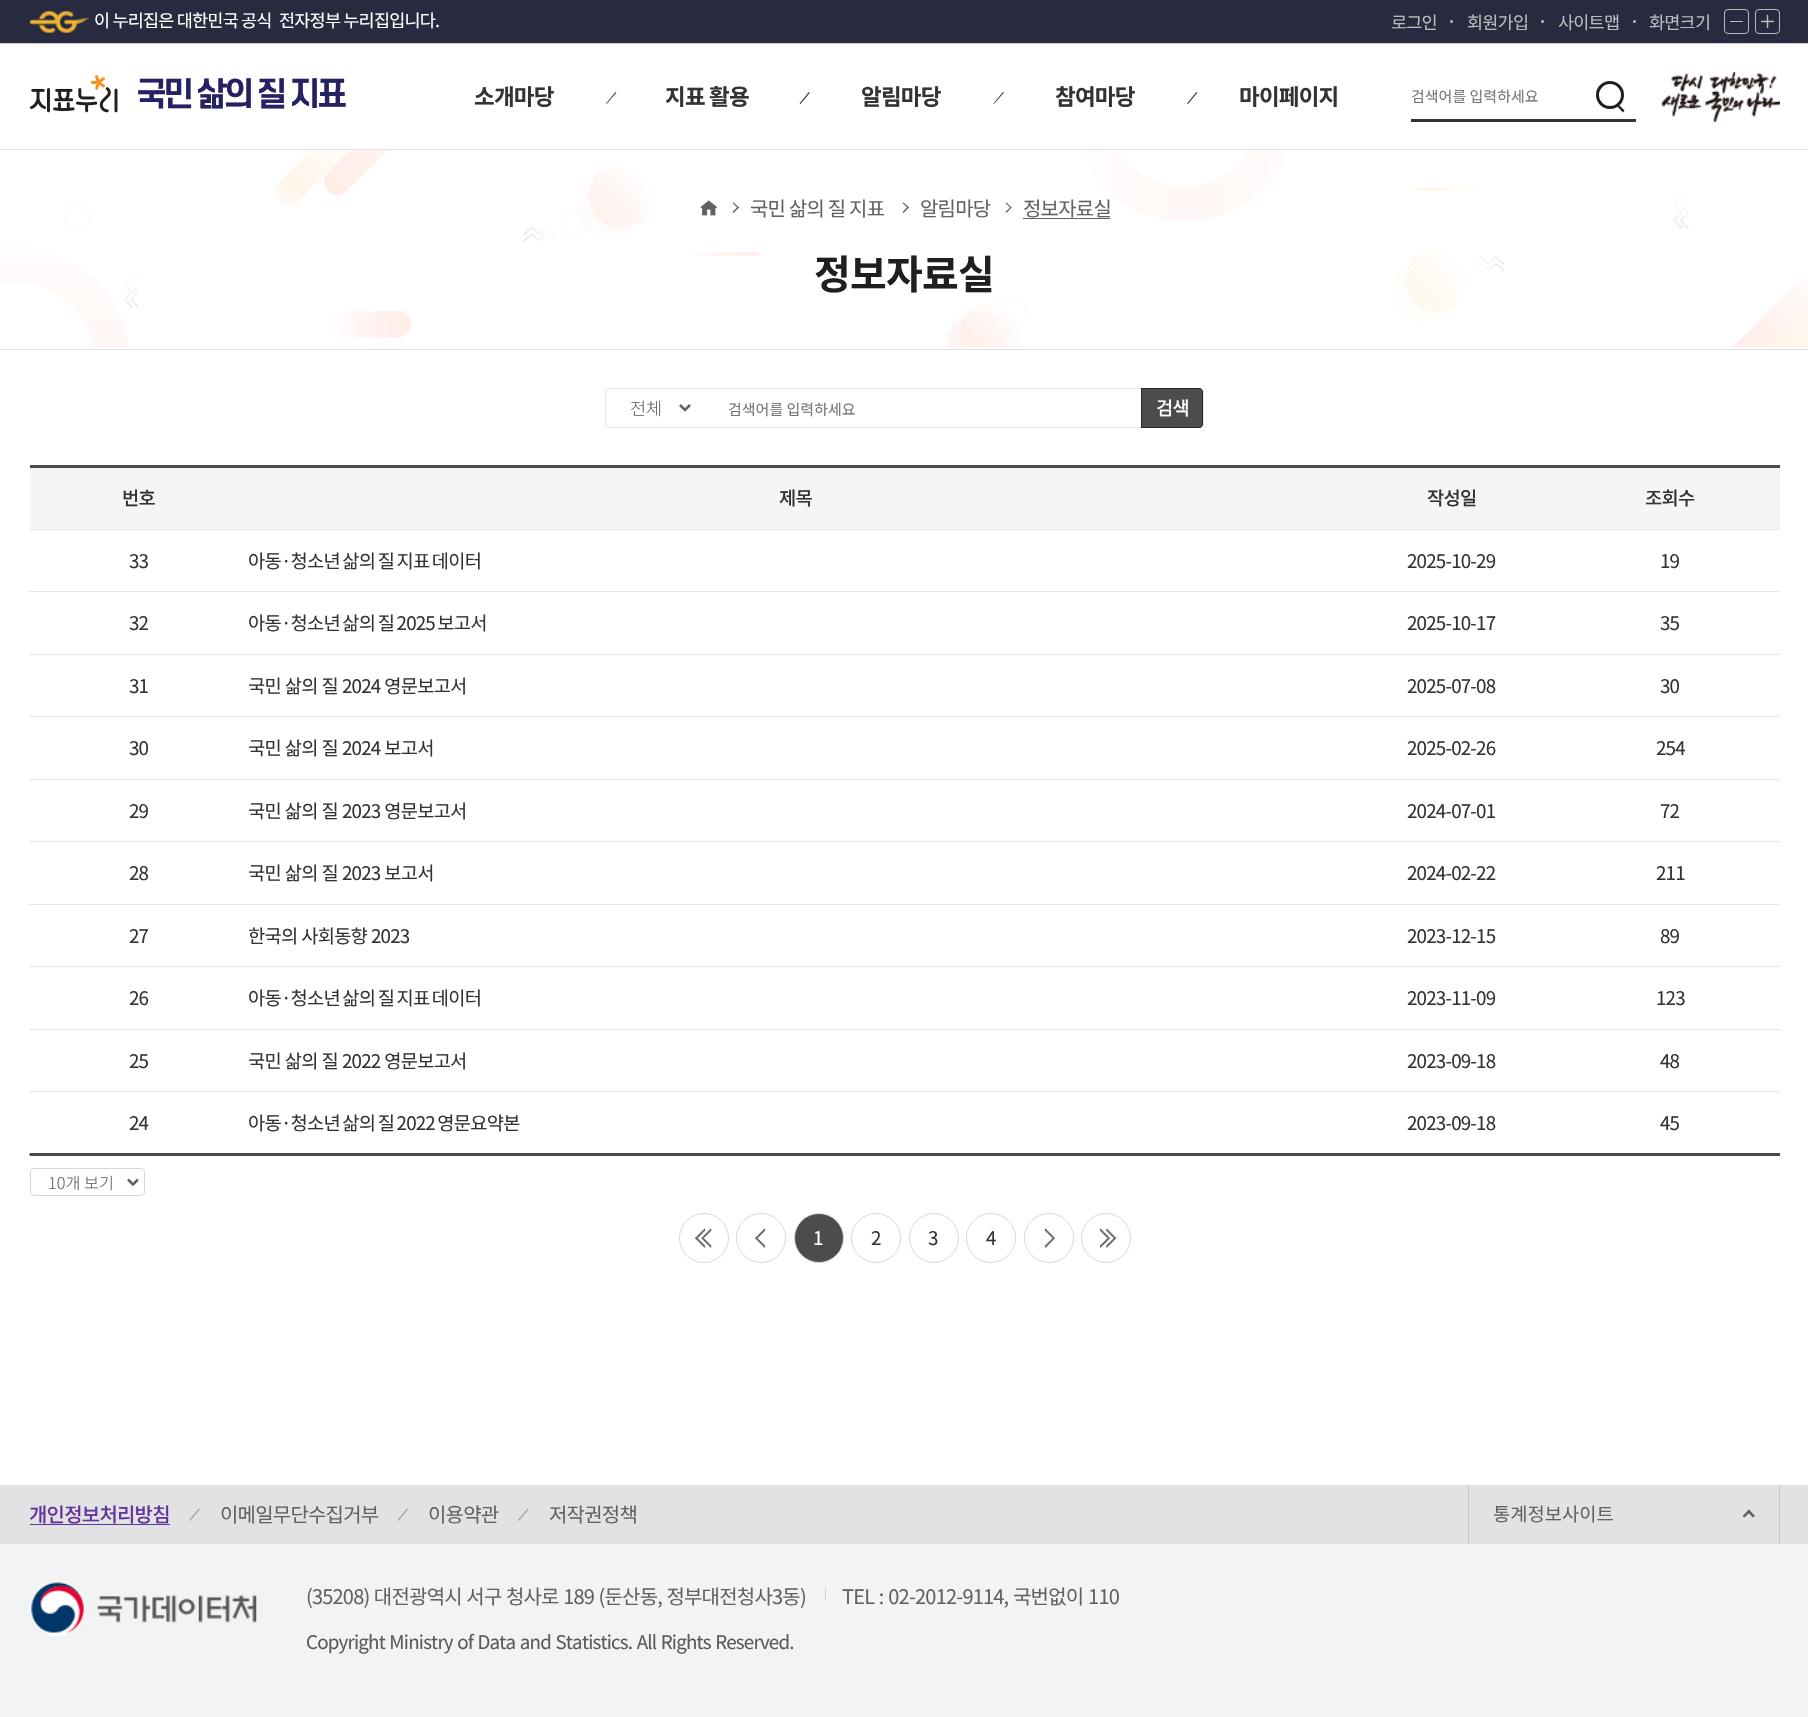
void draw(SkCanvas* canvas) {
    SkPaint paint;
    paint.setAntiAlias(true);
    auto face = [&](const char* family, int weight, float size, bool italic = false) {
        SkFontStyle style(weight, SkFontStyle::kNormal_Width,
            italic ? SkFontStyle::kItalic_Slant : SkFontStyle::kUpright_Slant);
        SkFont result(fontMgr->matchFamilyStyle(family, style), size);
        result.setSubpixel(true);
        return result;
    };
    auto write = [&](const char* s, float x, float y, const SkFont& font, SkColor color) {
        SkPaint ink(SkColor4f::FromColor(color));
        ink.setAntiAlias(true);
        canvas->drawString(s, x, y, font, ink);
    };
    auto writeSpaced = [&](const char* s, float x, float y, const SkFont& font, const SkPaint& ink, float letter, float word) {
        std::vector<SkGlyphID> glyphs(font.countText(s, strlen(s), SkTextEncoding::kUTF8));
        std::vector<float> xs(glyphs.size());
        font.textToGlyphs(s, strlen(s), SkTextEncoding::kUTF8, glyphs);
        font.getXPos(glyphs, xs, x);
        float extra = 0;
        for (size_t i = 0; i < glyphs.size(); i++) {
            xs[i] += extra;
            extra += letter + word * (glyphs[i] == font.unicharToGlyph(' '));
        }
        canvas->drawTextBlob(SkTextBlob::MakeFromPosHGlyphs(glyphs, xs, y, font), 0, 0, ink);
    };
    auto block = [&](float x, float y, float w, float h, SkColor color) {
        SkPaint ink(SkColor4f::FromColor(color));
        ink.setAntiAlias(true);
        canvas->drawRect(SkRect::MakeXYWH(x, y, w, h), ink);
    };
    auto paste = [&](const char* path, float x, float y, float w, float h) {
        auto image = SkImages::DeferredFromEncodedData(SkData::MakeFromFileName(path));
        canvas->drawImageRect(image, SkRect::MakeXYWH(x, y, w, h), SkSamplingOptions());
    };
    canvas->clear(SK_ColorWHITE);
    block(30, 1153, 1750, 3, SkColorSetRGB(78, 75, 76));
    block(30, 465, 1750, 1, SkColorSetRGB(78, 75, 76));
    block(0, 149, 1808, 1, SkColorSetRGB(224, 224, 224));
    block(0, 0, 1808, 43, SkColorSetRGB(40, 43, 63));
    block(0, 43, 1808, 1, SkColorSetRGB(204, 204, 204));
    paste("pic1.png", 30, 11, 59, 22);
    auto kFont1 = face("Noto Sans KR", 400, 17.5f);
    paint.setColor(SK_ColorWHITE);
    writeSpaced("이 누리집은 대한민국 공식", 94, 27, kFont1, paint, -0.8f, 0);
    writeSpaced("전자정부 누리집입니다.", 279, 27, kFont1, paint, -0.8f, 0);
    paint.setColor(SkColorSetRGB(187, 187, 187));
    writeSpaced("로그인", 1391, 29, kFont1, paint, -0.8f, 0);
    canvas->drawCircle(1451.5f, 21.5f, 1.5f, paint);
    writeSpaced("회원가입", 1467, 29, kFont1, paint, -0.8f, 0);
    canvas->drawCircle(1542.5f, 21.5f, 1.5f, paint);
    writeSpaced("사이트맵", 1558, 29, kFont1, paint, -0.8f, 0);
    canvas->drawCircle(1634.5f, 21.5f, 1.5f, paint);
    writeSpaced("화면크기", 1649, 29, kFont1, paint, -0.8f, 0);
    paint.setStyle(SkPaint::kStroke_Style);
    paint.setStrokeWidth(1);
    canvas->drawRoundRect(SkRect::MakeXYWH(1724.5f, 9.5f, 24, 24), 3.5f, 3.5f, paint);
    block(1730, 21, 13, 1, SkColorSetRGB(187, 187, 187));
    canvas->drawRoundRect(SkRect::MakeXYWH(1755.5f, 9.5f, 24, 24), 3.5f, 3.5f, paint);
    paste("pic2.png", 1760, 14, 15, 14);
    paste("pic3.png", 30, 75, 88, 38);
    auto kFont2 = face("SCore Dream", 700, 32.5f);
    paint.setStyle(SkPaint::kFill_Style);
    paint.setColor(SkColorSetRGB(38, 34, 98));
    writeSpaced("국민 삶의 질 지표", 136, 106, kFont2, paint, -3.9f, 0);
    paste("pic4.png", 1661, 71, 119, 51);
    auto kFont3 = face("Noto Sans KR", 700, 22.5f);
    paint.setColor(SkColorSetRGB(51, 51, 51));
    writeSpaced("소개마당", 474, 105, kFont3, paint, -0.8f, 0);
    canvas->drawPath(SkPathBuilder().moveTo(615.5f, 92).lineTo(616.5f, 92.5f).lineTo(606.5f, 104).lineTo(606, 103.5f).close().detach(), paint);
    writeSpaced("지표 활용", 665, 105, kFont3, paint, -0.8f, 0);
    canvas->drawPath(SkPathBuilder().moveTo(809, 92).lineTo(810, 92.5f).lineTo(800.5f, 104).lineTo(799.5f, 103.5f).close().detach(), paint);
    writeSpaced("알림마당", 861, 105, kFont3, paint, -0.8f, 0);
    canvas->drawPath(SkPathBuilder().moveTo(1003, 92).lineTo(1004, 92.5f).lineTo(994, 104).lineTo(993.5f, 103.5f).close().detach(), paint);
    writeSpaced("참여마당", 1055, 105, kFont3, paint, -0.8f, 0);
    canvas->drawPath(SkPathBuilder().moveTo(1196.5f, 92).lineTo(1197.5f, 92.5f).lineTo(1188, 104).lineTo(1187, 103.5f).close().detach(), paint);
    writeSpaced("마이페이지", 1239, 105, kFont3, paint, -0.8f, 0);
    block(1411, 119, 225, 3, SkColorSetRGB(51, 51, 51));
    auto kFont4 = face("Noto Sans KR", 400, 15);
    write("검색어를 입력하세요", 1411, 102, kFont4, SkColorSetRGB(117, 117, 117));
    paint.setStyle(SkPaint::kStroke_Style);
    paint.setStrokeWidth(3);
    paint.setColor(SkColorSetRGB(34, 30, 31));
    canvas->drawCircle(1610, 95, 12.5f, paint);
    paint.setStyle(SkPaint::kFill_Style);
    canvas->drawPath(SkPathBuilder().moveTo(1617.5f, 103.5f).lineTo(1624.5f, 110.5f).lineTo(1623, 112.5f).lineTo(1616, 105).close().detach(), paint);
    block(0, 349, 1808, 1, SkColorSetRGB(224, 224, 224));
    paste("pic5.png", 0, 150, 1808, 198);
    paste("pic6.png", 700, 200, 17, 16);
    paint.setColor(SkColorSetRGB(98, 98, 98));
    canvas->drawPath(SkPathBuilder().moveTo(732.5f, 203).lineTo(733.5f, 202.5f).lineTo(739, 207.5f).lineTo(738, 208.5f).close().detach(), paint);
    canvas->drawPath(SkPathBuilder().moveTo(732.5f, 212).lineTo(738, 206.5f).lineTo(739, 207.5f).lineTo(733.5f, 213).close().detach(), paint);
    auto kFont5 = face("Noto Sans KR", 400, 20);
    writeSpaced("국민 삶의 질 지표", 750, 216, kFont5, paint, -0.8f, 0);
    canvas->drawPath(SkPathBuilder().moveTo(902.5f, 203).lineTo(903.5f, 202.5f).lineTo(909, 207.5f).lineTo(908, 208.5f).close().detach(), paint);
    canvas->drawPath(SkPathBuilder().moveTo(902.5f, 212).lineTo(908, 206.5f).lineTo(909, 207.5f).lineTo(903.5f, 213).close().detach(), paint);
    writeSpaced("알림마당", 920, 216, kFont5, paint, -0.8f, 0);
    canvas->drawPath(SkPathBuilder().moveTo(1005.5f, 203).lineTo(1006.5f, 202.5f).lineTo(1011.5f, 207.5f).lineTo(1011, 208.5f).close().detach(), paint);
    canvas->drawPath(SkPathBuilder().moveTo(1005.5f, 212).lineTo(1011, 206.5f).lineTo(1011.5f, 207.5f).lineTo(1006.5f, 213).close().detach(), paint);
    writeSpaced("정보자료실", 1023, 216, kFont5, paint, -0.8f, 0);
    block(1023, 218, 87, 1, SkColorSetRGB(98, 98, 98));
    auto kFont6 = face("Noto Sans KR", 700, 40);
    paint.setColor(SkColorSetRGB(34, 30, 31));
    writeSpaced("정보자료실", 814, 289, kFont6, paint, -0.8f, 0);
    paint.setStyle(SkPaint::kStroke_Style);
    paint.setStrokeWidth(1);
    paint.setColor(SkColorSetRGB(230, 230, 230));
    canvas->drawRoundRect(SkRect::MakeXYWH(605.5f, 388.5f, 598, 39), 3.5f, 3.5f, paint);
    paint.setStrokeWidth(2.5f);
    paint.setColor(SkColorSetRGB(98, 98, 98));
    canvas->drawPath(SkPathBuilder().moveTo(680, 405).lineTo(685, 410).lineTo(690, 405).detach(), paint);
    auto kFont7 = face("Noto Sans KR", 300, 17.5f);
    write("전체", 630, 415, kFont7, SkColorSetRGB(98, 98, 98));
    write("검색어를 입력하세요", 728, 415, kFont4, SkColorSetRGB(117, 117, 117));
    paint.setStyle(SkPaint::kFill_Style);
    paint.setColor(SkColorSetARGB(204, 34, 30, 31));
    canvas->drawPath(SkPathBuilder().moveTo(1141, 388).lineTo(1199, 388).cubicTo(1201, 388, 1203, 390, 1203, 392).lineTo(1203, 424).cubicTo(1203, 426, 1201, 428, 1199, 428).lineTo(1141, 428).close().detach(), paint);
    paint.setStyle(SkPaint::kStroke_Style);
    paint.setStrokeWidth(1);
    canvas->drawPath(SkPathBuilder().moveTo(1141.5f, 388.5f).lineTo(1199, 388.5f).cubicTo(1201, 388.5f, 1202.5f, 390, 1202.5f, 392).lineTo(1202.5f, 424).cubicTo(1202.5f, 426, 1201, 427.5f, 1199, 427.5f).lineTo(1141.5f, 427.5f).close().detach(), paint);
    auto kFont8 = face("Noto Sans KR", 500, 18.75f);
    paint.setStyle(SkPaint::kFill_Style);
    paint.setColor(SK_ColorWHITE);
    writeSpaced("검색", 1156, 415, kFont8, paint, -0.8f, 0);
    block(30, 468, 1750, 61, SkColorSetRGB(245, 245, 245));
    block(30, 466, 1750, 2, SkColorSetRGB(76, 73, 74));
    block(29, 529, 1751, 1, SkColorSetRGB(230, 230, 230));
    paint.setColor(SkColorSetRGB(51, 51, 51));
    writeSpaced("번호", 122, 505, kFont8, paint, -0.8f, 0);
    writeSpaced("제목", 779, 505, kFont8, paint, -0.8f, 0);
    writeSpaced("작성일", 1427, 505, kFont8, paint, -0.8f, 0);
    writeSpaced("조회수", 1645, 505, kFont8, paint, -0.8f, 0);
    block(29, 591, 1751, 1, SkColorSetRGB(230, 230, 230));
    auto kFont9 = face("Noto Sans KR", 400, 18.75f);
    writeSpaced("33", 129, 568, kFont9, paint, -0.8f, 0);
    writeSpaced("아동·청소년 삶의 질 지표 데이터", 248, 568, kFont9, paint, -0.8f, -1);
    writeSpaced("2025-10-29", 1407, 568, kFont9, paint, -0.8f, 0);
    writeSpaced("19", 1660, 568, kFont9, paint, -0.8f, 0);
    block(29, 654, 1751, 1, SkColorSetRGB(230, 230, 230));
    writeSpaced("32", 129, 630, kFont9, paint, -0.8f, 0);
    writeSpaced("아동·청소년 삶의 질 2025 보고서", 248, 630, kFont9, paint, -0.8f, -1);
    writeSpaced("2025-10-17", 1407, 630, kFont9, paint, -0.8f, 0);
    writeSpaced("35", 1660, 630, kFont9, paint, -0.8f, 0);
    block(29, 716, 1751, 1, SkColorSetRGB(230, 230, 230));
    writeSpaced("31", 129, 693, kFont9, paint, -0.8f, 0);
    writeSpaced("국민 삶의 질 2024 영문보고서", 248, 693, kFont9, paint, -0.8f, 0.5f);
    writeSpaced("2025-07-08", 1407, 693, kFont9, paint, -0.8f, 0);
    writeSpaced("30", 1660, 693, kFont9, paint, -0.8f, 0);
    block(29, 779, 1751, 1, SkColorSetRGB(230, 230, 230));
    writeSpaced("30", 129, 755, kFont9, paint, -0.8f, 0);
    writeSpaced("국민 삶의 질 2024 보고서", 248, 755, kFont9, paint, -0.8f, 0.5f);
    writeSpaced("2025-02-26", 1407, 755, kFont9, paint, -0.8f, 0);
    writeSpaced("254", 1656, 755, kFont9, paint, -0.8f, 0);
    block(29, 841, 1751, 1, SkColorSetRGB(230, 230, 230));
    writeSpaced("29", 129, 818, kFont9, paint, -0.8f, 0);
    writeSpaced("국민 삶의 질 2023 영문보고서", 248, 818, kFont9, paint, -0.8f, 0.5f);
    writeSpaced("2024-07-01", 1407, 818, kFont9, paint, -0.8f, 0);
    writeSpaced("72", 1660, 818, kFont9, paint, -0.8f, 0);
    block(29, 904, 1751, 1, SkColorSetRGB(230, 230, 230));
    writeSpaced("28", 129, 880, kFont9, paint, -0.8f, 0);
    writeSpaced("국민 삶의 질 2023 보고서", 248, 880, kFont9, paint, -0.8f, 0.5f);
    writeSpaced("2024-02-22", 1407, 880, kFont9, paint, -0.8f, 0);
    writeSpaced("211", 1656, 880, kFont9, paint, -0.8f, 0);
    block(29, 966, 1751, 1, SkColorSetRGB(230, 230, 230));
    writeSpaced("27", 129, 943, kFont9, paint, -0.8f, 0);
    writeSpaced("한국의 사회동향 2023", 248, 943, kFont9, paint, -0.8f, 0.5f);
    writeSpaced("2023-12-15", 1407, 943, kFont9, paint, -0.8f, 0);
    writeSpaced("89", 1660, 943, kFont9, paint, -0.8f, 0);
    block(29, 1029, 1751, 1, SkColorSetRGB(230, 230, 230));
    writeSpaced("26", 129, 1005, kFont9, paint, -0.8f, 0);
    writeSpaced("아동·청소년 삶의 질 지표 데이터", 248, 1005, kFont9, paint, -0.8f, -1);
    writeSpaced("2023-11-09", 1407, 1005, kFont9, paint, -0.8f, 0);
    writeSpaced("123", 1656, 1005, kFont9, paint, -0.8f, 0);
    block(29, 1091, 1751, 1, SkColorSetRGB(230, 230, 230));
    writeSpaced("25", 129, 1068, kFont9, paint, -0.8f, 0);
    writeSpaced("국민 삶의 질 2022 영문보고서", 248, 1068, kFont9, paint, -0.8f, 0.5f);
    writeSpaced("2023-09-18", 1407, 1068, kFont9, paint, -0.8f, 0);
    writeSpaced("48", 1660, 1068, kFont9, paint, -0.8f, 0);
    block(29, 1154, 1751, 1, SkColorSetRGB(73, 70, 71));
    writeSpaced("24", 129, 1130, kFont9, paint, -0.8f, 0);
    writeSpaced("아동·청소년 삶의 질 2022 영문요약본", 248, 1130, kFont9, paint, -0.8f, -1);
    writeSpaced("2023-09-18", 1407, 1130, kFont9, paint, -0.8f, 0);
    writeSpaced("45", 1660, 1130, kFont9, paint, -0.8f, 0);
    paint.setStyle(SkPaint::kStroke_Style);
    paint.setColor(SkColorSetRGB(215, 215, 215));
    canvas->drawRoundRect(SkRect::MakeXYWH(30.5f, 1168.5f, 114, 27), 3.5f, 3.5f, paint);
    paint.setStrokeWidth(2.5f);
    paint.setColor(SkColorSetRGB(98, 98, 98));
    canvas->drawPath(SkPathBuilder().moveTo(128, 1179.5f).lineTo(133, 1184.5f).lineTo(138, 1179.5f).detach(), paint);
    auto kFont10 = face("Noto Sans KR", 300, 16.25f);
    write("10개 보기", 48, 1189, kFont10, SkColorSetRGB(98, 98, 98));
    paste("pic7.png", 695, 1228, 17, 20);
    paint.setStrokeWidth(1);
    paint.setColor(SkColorSetRGB(216, 216, 216));
    canvas->drawCircle(704, 1238, 24.5f, paint);
    paste("pic8.png", 755, 1228, 10, 20);
    canvas->drawCircle(761, 1238, 24.5f, paint);
    paint.setStyle(SkPaint::kFill_Style);
    paint.setColor(SkColorSetRGB(78, 75, 76));
    canvas->drawCircle(819, 1238, 24.5f, paint);
    paint.setStyle(SkPaint::kStroke_Style);
    paint.setColor(SkColorSetRGB(216, 216, 216));
    canvas->drawCircle(819, 1238, 24.5f, paint);
    paint.setStyle(SkPaint::kFill_Style);
    paint.setColor(SK_ColorWHITE);
    writeSpaced("1", 813, 1245, kFont9, paint, -0.8f, 0);
    paint.setStyle(SkPaint::kStroke_Style);
    paint.setColor(SkColorSetRGB(216, 216, 216));
    canvas->drawCircle(876, 1238, 24.5f, paint);
    paint.setStyle(SkPaint::kFill_Style);
    paint.setColor(SkColorSetRGB(51, 51, 51));
    writeSpaced("2", 871, 1245, kFont9, paint, -0.8f, 0);
    paint.setStyle(SkPaint::kStroke_Style);
    paint.setColor(SkColorSetRGB(216, 216, 216));
    canvas->drawCircle(934, 1238, 24.5f, paint);
    paint.setStyle(SkPaint::kFill_Style);
    paint.setColor(SkColorSetRGB(51, 51, 51));
    writeSpaced("3", 928, 1245, kFont9, paint, -0.8f, 0);
    paint.setStyle(SkPaint::kStroke_Style);
    paint.setColor(SkColorSetRGB(216, 216, 216));
    canvas->drawCircle(991, 1238, 24.5f, paint);
    paint.setStyle(SkPaint::kFill_Style);
    paint.setColor(SkColorSetRGB(51, 51, 51));
    writeSpaced("4", 986, 1245, kFont9, paint, -0.8f, 0);
    paste("pic9.png", 1045, 1228, 10, 20);
    paint.setStyle(SkPaint::kStroke_Style);
    paint.setColor(SkColorSetRGB(216, 216, 216));
    canvas->drawCircle(1049, 1238, 24.5f, paint);
    paste("pic10.png", 1100, 1228, 17, 20);
    canvas->drawCircle(1106, 1238, 24.5f, paint);
    block(0, 1544, 1808, 173, SkColorSetRGB(242, 243, 244));
    block(0, 1485, 1808, 59, SkColorSetRGB(224, 226, 228));
    auto kFont11 = face("Noto Sans KR", 500, 20);
    paint.setStyle(SkPaint::kFill_Style);
    paint.setColor(SkColorSetRGB(102, 51, 153));
    writeSpaced("개인정보처리방침", 29, 1522, kFont11, paint, -0.8f, 0);
    block(30, 1524, 140, 1, SkColorSetRGB(102, 51, 153));
    paint.setColor(SkColorSetRGB(167, 167, 167));
    canvas->drawPath(SkPathBuilder().moveTo(199, 1508.5f).lineTo(200, 1509.5f).lineTo(190, 1521).lineTo(189, 1520).close().detach(), paint);
    paint.setColor(SkColorSetRGB(98, 98, 98));
    writeSpaced("이메일무단수집거부", 220, 1522, kFont5, paint, -0.8f, 0);
    paint.setColor(SkColorSetRGB(167, 167, 167));
    canvas->drawPath(SkPathBuilder().moveTo(407, 1508.5f).lineTo(408, 1509.5f).lineTo(398.5f, 1521).lineTo(397.5f, 1520).close().detach(), paint);
    paint.setColor(SkColorSetRGB(98, 98, 98));
    writeSpaced("이용약관", 428, 1522, kFont5, paint, -0.8f, 0);
    paint.setColor(SkColorSetRGB(167, 167, 167));
    canvas->drawPath(SkPathBuilder().moveTo(527.5f, 1508.5f).lineTo(528.5f, 1509.5f).lineTo(519, 1521).lineTo(518, 1520).close().detach(), paint);
    paint.setColor(SkColorSetRGB(98, 98, 98));
    writeSpaced("저작권정책", 549, 1522, kFont5, paint, -0.8f, 0);
    block(1779, 1485, 1, 59, SkColorSetRGB(195, 195, 195));
    block(1468, 1485, 1, 59, SkColorSetRGB(195, 195, 195));
    write("통계정보사이트", 1493, 1521, kFont9, SkColorSetRGB(98, 98, 98));
    canvas->drawPath(SkPathBuilder().moveTo(1744.5f, 1517.5f).lineTo(1742.5f, 1516).lineTo(1749, 1509.5f).lineTo(1750.5f, 1511.5f).close().detach(), paint);
    canvas->drawPath(SkPathBuilder().moveTo(1753, 1517.5f).lineTo(1747, 1511.5f).lineTo(1749, 1509.5f).lineTo(1755, 1516).close().detach(), paint);
    paste("pic11.png", 30, 1581, 227, 55);
    writeSpaced("(35208) 대전광역시 서구 청사로 189 (둔산동, 정부대전청사3동)", 306, 1604, kFont5, paint, -0.8f, 0.75f);
    auto kFont12 = face("Noto Sans KR", 400, 11);
    paint.setColor(SkColorSetRGB(201, 201, 202));
    writeSpaced("|", 824, 1597, kFont12, paint, -0.8f, 0);
    paint.setColor(SkColorSetRGB(98, 98, 98));
    writeSpaced("TEL : 02-2012-9114, 국번없이 110", 842, 1604, kFont5, paint, -0.8f, 1);
    paint.setColor(SkColorSetRGB(89, 89, 95));
    writeSpaced("Copyright Ministry of Data and Statistics. All Rights Reserved.", 306, 1649, kFont9, paint, -0.8f, 1);
}
